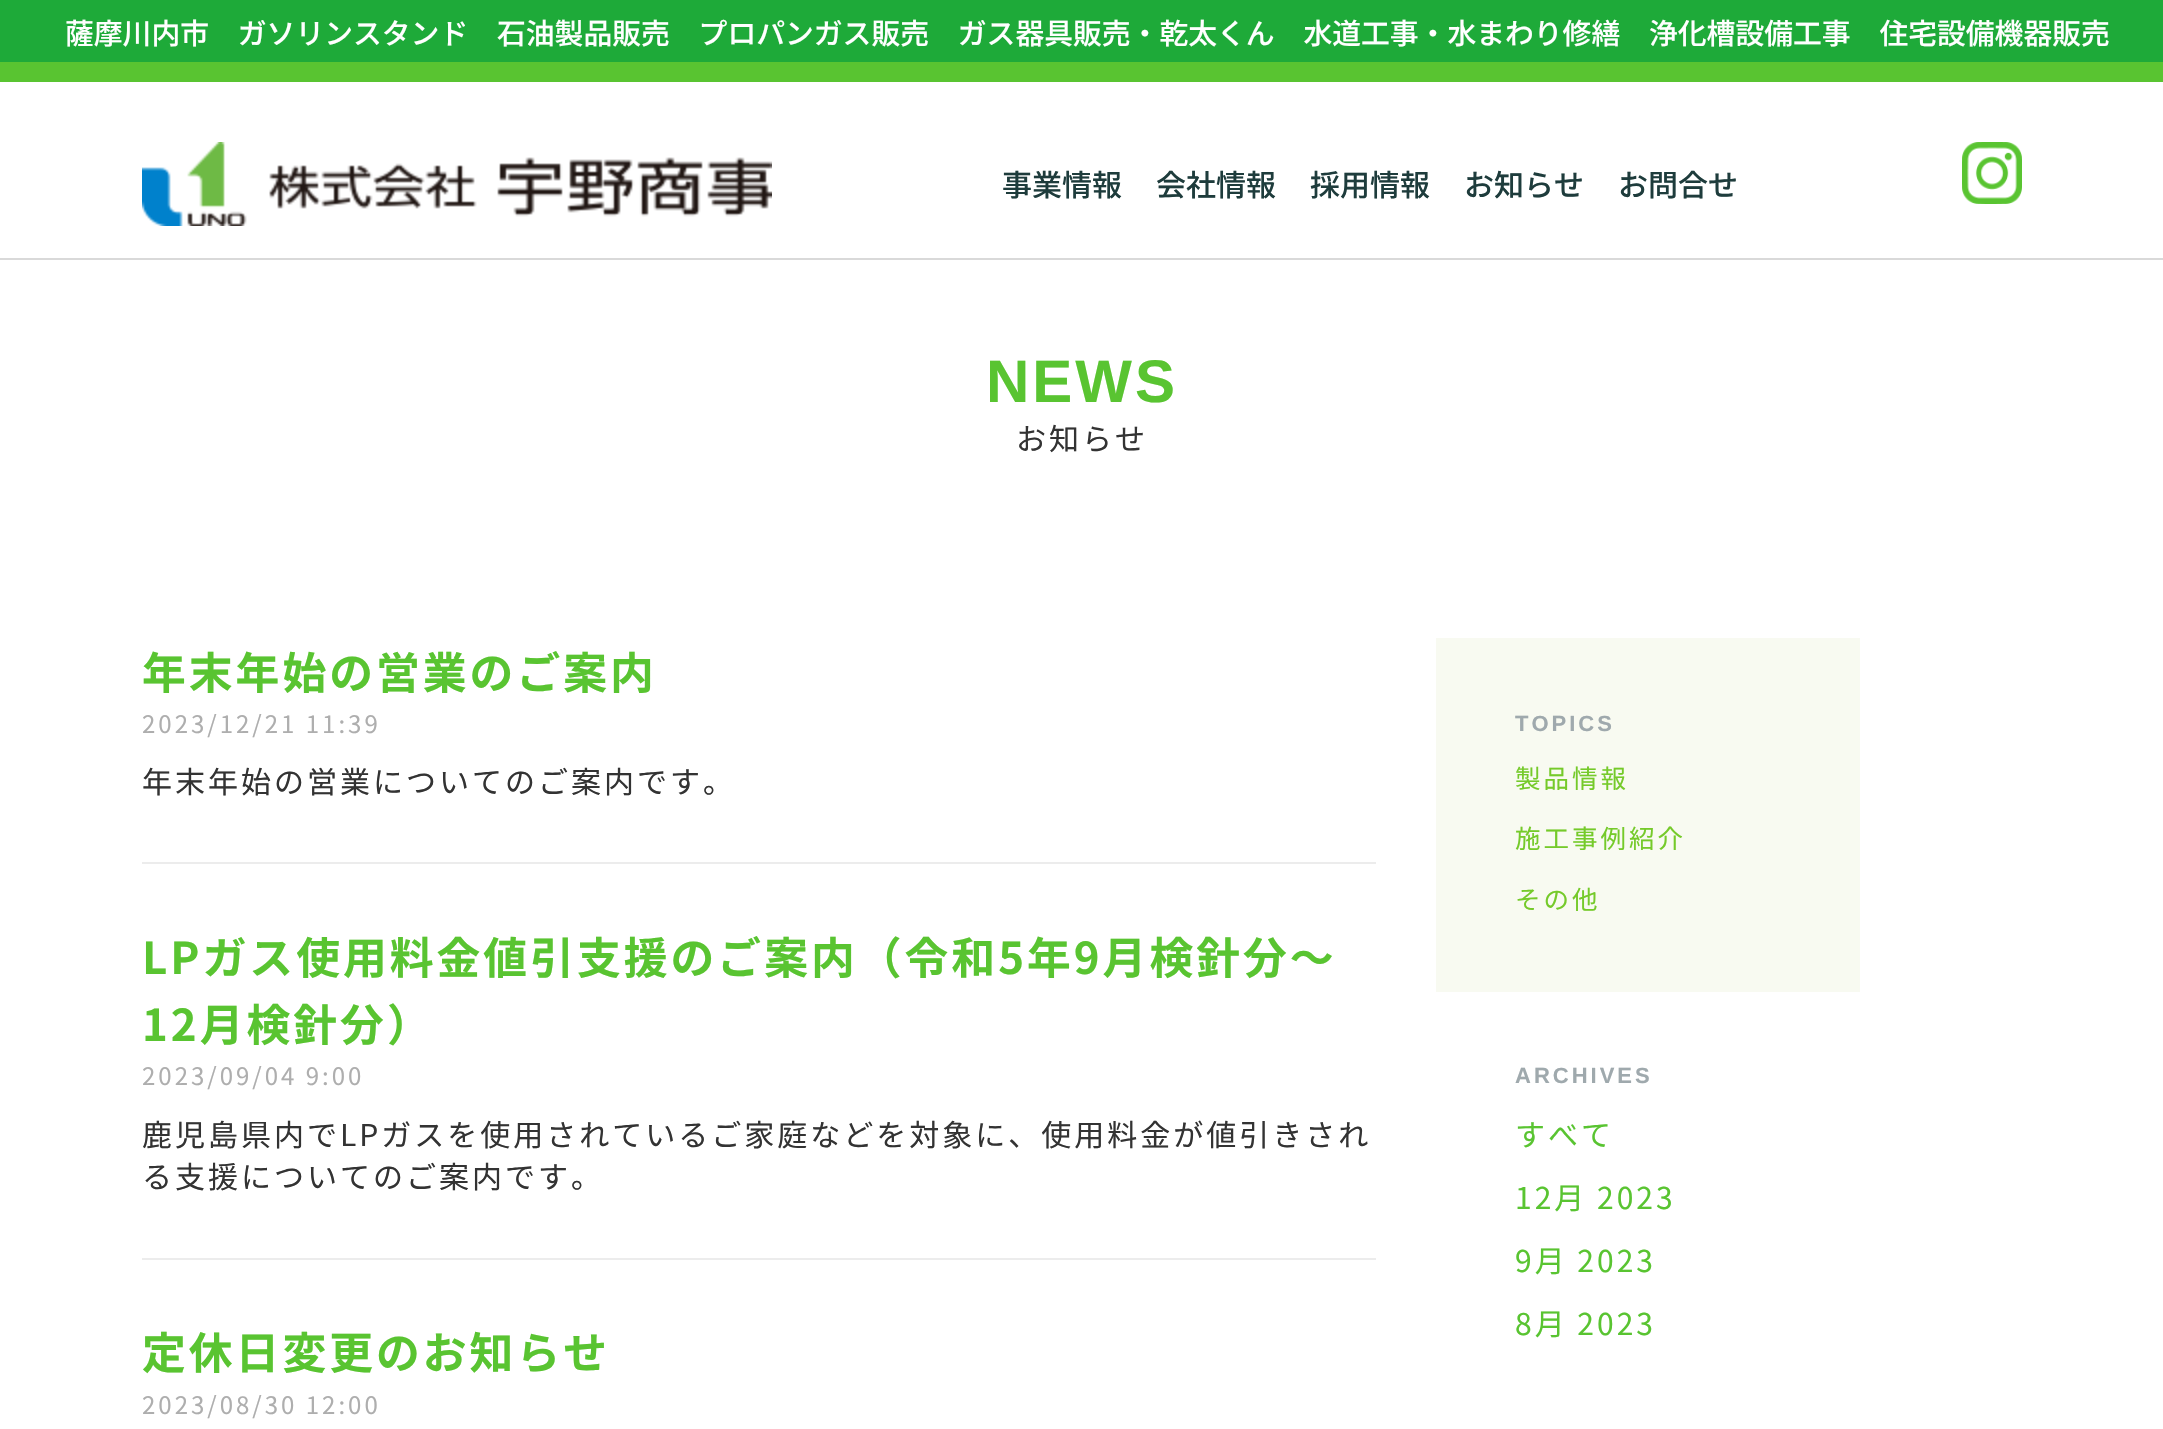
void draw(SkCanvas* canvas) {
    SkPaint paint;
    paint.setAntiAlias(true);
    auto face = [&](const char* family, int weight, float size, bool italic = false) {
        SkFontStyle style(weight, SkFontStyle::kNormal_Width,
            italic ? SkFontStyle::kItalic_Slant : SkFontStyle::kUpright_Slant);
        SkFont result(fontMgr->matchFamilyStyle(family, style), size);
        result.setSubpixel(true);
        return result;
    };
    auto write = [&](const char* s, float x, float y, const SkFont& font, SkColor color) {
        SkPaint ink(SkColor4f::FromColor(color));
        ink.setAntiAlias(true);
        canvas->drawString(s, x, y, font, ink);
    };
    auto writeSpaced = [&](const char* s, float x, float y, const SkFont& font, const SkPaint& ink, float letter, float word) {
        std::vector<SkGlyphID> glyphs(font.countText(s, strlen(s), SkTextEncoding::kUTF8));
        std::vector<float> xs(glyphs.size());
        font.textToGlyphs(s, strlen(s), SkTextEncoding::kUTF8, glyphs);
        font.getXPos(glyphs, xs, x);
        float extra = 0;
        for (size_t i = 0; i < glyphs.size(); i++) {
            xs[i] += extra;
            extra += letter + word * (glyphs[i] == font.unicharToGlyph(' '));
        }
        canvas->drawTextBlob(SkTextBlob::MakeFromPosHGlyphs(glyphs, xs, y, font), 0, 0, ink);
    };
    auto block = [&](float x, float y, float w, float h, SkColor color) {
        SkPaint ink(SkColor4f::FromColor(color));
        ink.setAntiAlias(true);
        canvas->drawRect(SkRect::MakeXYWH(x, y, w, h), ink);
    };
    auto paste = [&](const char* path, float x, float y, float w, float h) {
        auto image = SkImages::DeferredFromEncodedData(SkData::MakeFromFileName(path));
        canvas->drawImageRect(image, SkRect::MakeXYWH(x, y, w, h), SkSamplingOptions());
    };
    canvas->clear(SK_ColorWHITE);
    block(0, 258, 2163, 2, SkColorSetRGB(217, 217, 217));
    block(0, 62, 2163, 20, SkColorSetRGB(89, 196, 49));
    block(0, 0, 2163, 62, SkColorSetRGB(30, 170, 57));
    auto kFont1 = face("Noto Sans JP", 500, 28.8f);
    write("薩摩川内市　ガソリンスタンド　石油製品販売　プロパンガス販売　ガス器具販売・乾太くん　水道工事・水まわり修繕　浄化槽設備工事　住宅設備機器販売", 65, 44, kFont1, SK_ColorWHITE);
    paste("pic1.png", 142, 142, 630, 84);
    auto kFont2 = face("Noto Sans JP", 500, 30);
    write("事業情報", 1002, 196, kFont2, SkColorSetRGB(30, 60, 60));
    write("会社情報", 1156, 196, kFont2, SkColorSetRGB(30, 60, 60));
    write("採用情報", 1310, 196, kFont2, SkColorSetRGB(30, 60, 60));
    write("お知らせ", 1464, 196, kFont2, SkColorSetRGB(30, 60, 60));
    write("お問合せ", 1618, 196, kFont2, SkColorSetRGB(30, 60, 60));
    paste("pic2.png", 1962, 142, 60, 62);
    auto kFont3 = face("Liberation Sans", 700, 60);
    paint.setColor(SkColorSetRGB(89, 196, 49));
    writeSpaced("NEWS", 986, 402, kFont3, paint, 3, 0);
    auto kFont4 = face("Noto Sans JP", 400, 30);
    paint.setColor(SkColorSetRGB(51, 51, 51));
    writeSpaced("お知らせ", 1016, 450, kFont4, paint, 3, 0);
    block(142, 862, 1234, 2, SkColorSetRGB(236, 236, 236));
    auto kFont5 = face("Noto Sans JP", 700, 43.8f);
    paint.setColor(SkColorSetRGB(89, 196, 49));
    writeSpaced("年末年始の営業のご案内", 142, 689, kFont5, paint, 3, 0);
    auto kFont6 = face("Noto Sans JP", 400, 24);
    paint.setColor(SkColorSetRGB(174, 174, 174));
    writeSpaced("2023/12/21 11:39", 142, 733, kFont6, paint, 3, 0);
    paint.setColor(SkColorSetRGB(51, 51, 51));
    writeSpaced("年末年始の営業についてのご案内です。", 142, 793, kFont4, paint, 3, 0);
    block(142, 1258, 1234, 2, SkColorSetRGB(236, 236, 236));
    paint.setColor(SkColorSetRGB(89, 196, 49));
    writeSpaced("LPガス使用料金値引支援のご案内（令和5年9月検針分～", 142, 974, kFont5, paint, 3, 0);
    writeSpaced("12月検針分）", 142, 1041, kFont5, paint, 3, 0);
    paint.setColor(SkColorSetRGB(174, 174, 174));
    writeSpaced("2023/09/04 9:00", 142, 1085, kFont6, paint, 3, 0);
    paint.setColor(SkColorSetRGB(51, 51, 51));
    writeSpaced("鹿児島県内でLPガスを使用されているご家庭などを対象に、使用料金が値引きされ", 142, 1146, kFont4, paint, 3, 0);
    writeSpaced("る支援についてのご案内です。", 142, 1188, kFont4, paint, 3, 0);
    paint.setColor(SkColorSetRGB(89, 196, 49));
    writeSpaced("定休日変更のお知らせ", 142, 1369, kFont5, paint, 3, 0);
    paint.setColor(SkColorSetRGB(174, 174, 174));
    writeSpaced("2023/08/30 12:00", 142, 1414, kFont6, paint, 3, 0);
    block(1436, 638, 424, 354, SkColorSetRGB(248, 250, 241));
    auto kFont7 = face("Liberation Sans", 700, 22);
    paint.setColor(SkColorSetRGB(159, 169, 173));
    writeSpaced("TOPICS", 1515, 731, kFont7, paint, 3, 0);
    auto kFont8 = face("Noto Sans JP", 400, 25.5f);
    paint.setColor(SkColorSetRGB(117, 202, 42));
    writeSpaced("製品情報", 1515, 788, kFont8, paint, 3, 0);
    writeSpaced("施工事例紹介", 1515, 848, kFont8, paint, 3, 0);
    writeSpaced("その他", 1515, 909, kFont8, paint, 3, 0);
    paint.setColor(SkColorSetRGB(159, 169, 173));
    writeSpaced("ARCHIVES", 1515, 1083, kFont7, paint, 3, 0);
    paint.setColor(SkColorSetRGB(89, 196, 49));
    writeSpaced("すべて", 1515, 1146, kFont4, paint, 3, 0);
    writeSpaced("12月 2023", 1515, 1209, kFont4, paint, 3, 0);
    writeSpaced("9月 2023", 1515, 1272, kFont4, paint, 3, 0);
    writeSpaced("8月 2023", 1515, 1335, kFont4, paint, 3, 0);
}
